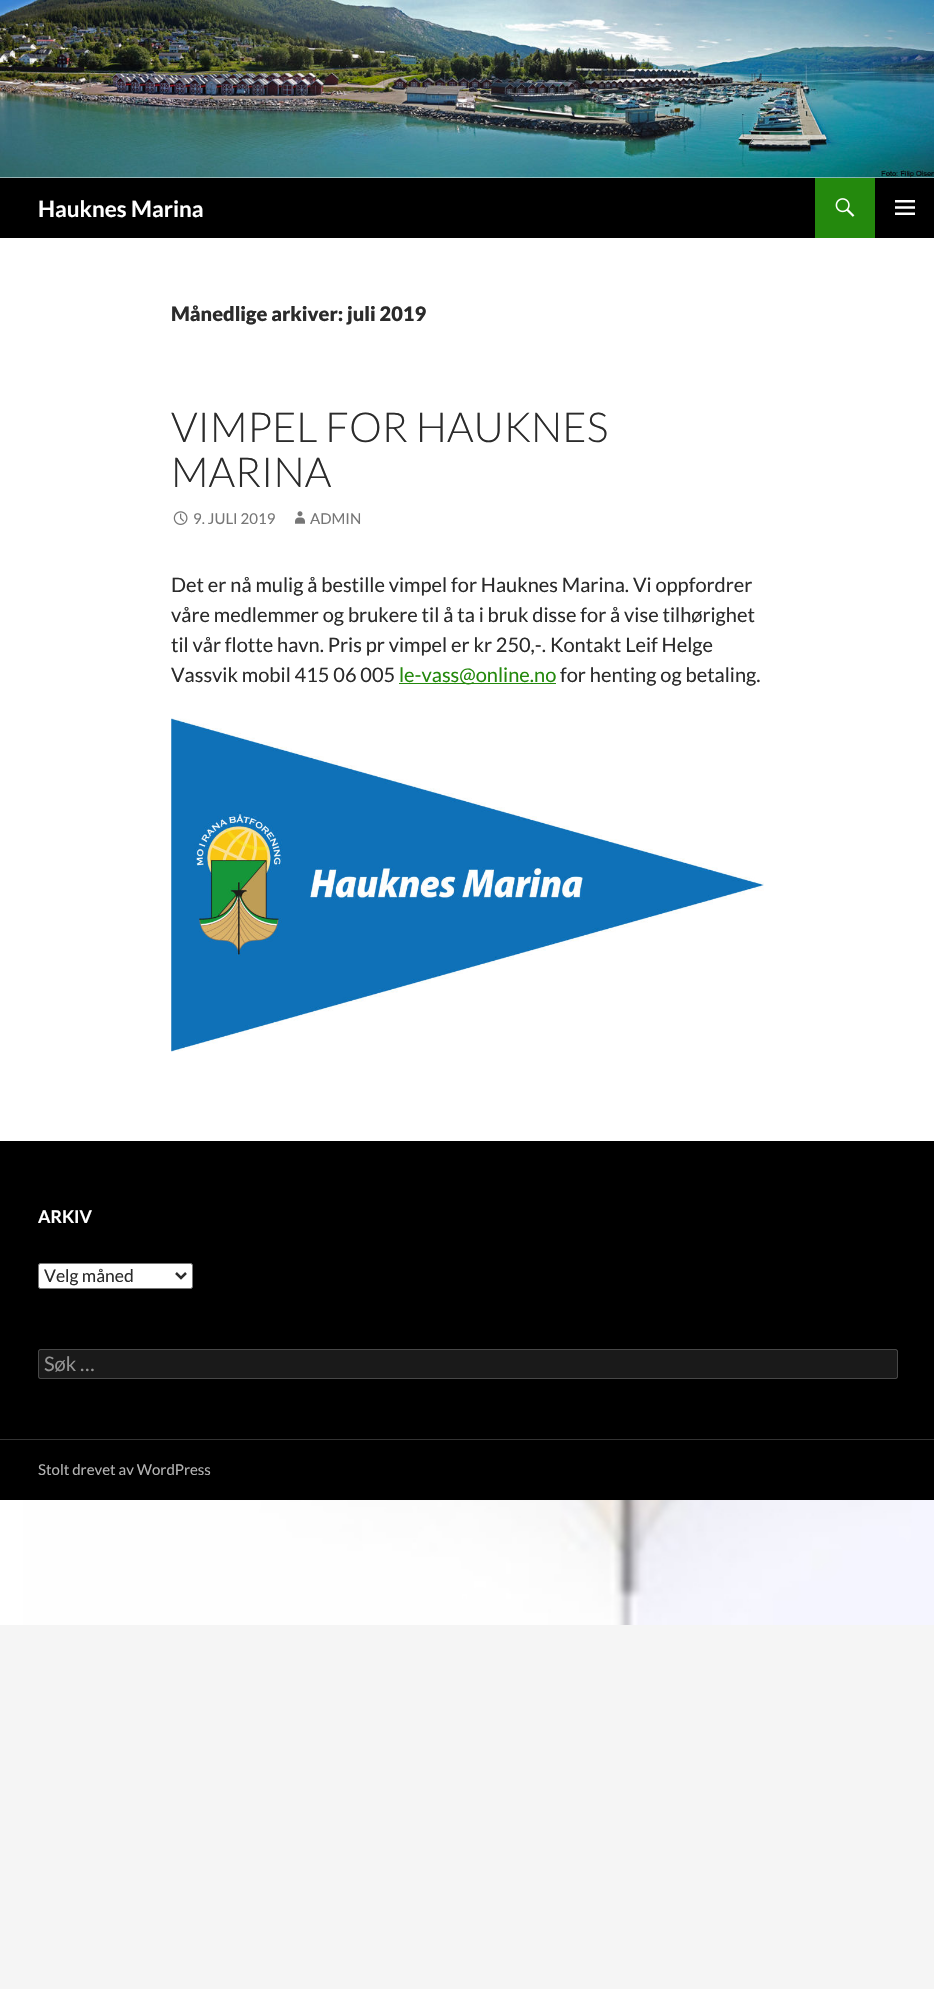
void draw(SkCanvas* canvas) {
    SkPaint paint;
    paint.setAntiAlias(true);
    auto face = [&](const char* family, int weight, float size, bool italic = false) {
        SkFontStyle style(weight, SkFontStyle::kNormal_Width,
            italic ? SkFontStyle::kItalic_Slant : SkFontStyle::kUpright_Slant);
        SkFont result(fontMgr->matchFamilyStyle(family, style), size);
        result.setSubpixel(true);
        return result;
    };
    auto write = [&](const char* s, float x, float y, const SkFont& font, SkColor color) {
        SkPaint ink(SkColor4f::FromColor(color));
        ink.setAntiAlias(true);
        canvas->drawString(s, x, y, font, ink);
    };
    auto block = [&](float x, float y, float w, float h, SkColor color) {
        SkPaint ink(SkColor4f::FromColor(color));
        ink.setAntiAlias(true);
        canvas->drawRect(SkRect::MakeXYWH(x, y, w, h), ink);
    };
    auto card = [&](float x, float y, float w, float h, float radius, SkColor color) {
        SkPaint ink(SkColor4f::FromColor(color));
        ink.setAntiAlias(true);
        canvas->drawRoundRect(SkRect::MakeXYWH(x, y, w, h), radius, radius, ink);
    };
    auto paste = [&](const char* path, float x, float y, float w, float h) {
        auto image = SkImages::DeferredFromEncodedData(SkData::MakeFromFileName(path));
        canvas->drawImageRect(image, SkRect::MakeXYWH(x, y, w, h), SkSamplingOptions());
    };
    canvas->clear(SkColorSetRGB(245, 245, 245));
    paste("pic1.png", 0, 1500, 934, 125);
    block(0, 177, 934, 964, SK_ColorWHITE);
    paste("pic2.png", 0, 0, 934, 178);
    block(0, 178, 934, 60, SK_ColorBLACK);
    auto kFont1 = face("Lato", 700, 22.5f);
    write("Hauknes Marina", 38, 217, kFont1, SK_ColorWHITE);
    block(815, 178, 60, 60, SkColorSetRGB(36, 137, 13));
    paste("pic3.png", 835, 198, 20, 19);
    paste("pic4.png", 895, 200, 20, 15);
    auto kFont2 = face("Lato", 900, 20);
    write("Månedlige arkiver: juli 2019", 171, 321, kFont2, SkColorSetRGB(43, 43, 43));
    auto kFont3 = face("Lato", 300, 41.25f);
    write("VIMPEL FOR HAUKNES", 171, 442, kFont3, SkColorSetRGB(43, 43, 43));
    write("MARINA", 171, 487, kFont3, SkColorSetRGB(43, 43, 43));
    paste("pic5.png", 173, 511, 15, 14);
    auto kFont4 = face("Lato", 400, 15);
    write("9. JULI 2019", 193, 524, kFont4, SkColorSetRGB(118, 118, 118));
    paste("pic6.png", 295, 511, 10, 13);
    write("ADMIN", 310, 524, kFont4, SkColorSetRGB(118, 118, 118));
    auto kFont5 = face("Lato", 400, 20);
    write("Det er nå mulig å bestille vimpel for Hauknes Marina. Vi oppfordrer", 171, 592, kFont5, SkColorSetRGB(43, 43, 43));
    write("våre medlemmer og brukere til å ta i bruk disse for å vise tilhørighet", 171, 622, kFont5, SkColorSetRGB(43, 43, 43));
    write("til vår flotte havn. Pris pr vimpel er kr 250,-. Kontakt Leif Helge", 171, 652, kFont5, SkColorSetRGB(43, 43, 43));
    write("Vassvik mobil 415 06 005", 171, 682, kFont5, SkColorSetRGB(43, 43, 43));
    block(399, 683, 157, 1, SkColorSetRGB(36, 137, 13));
    write("le-vass@online.no", 399, 682, kFont5, SkColorSetRGB(36, 137, 13));
    write("for henting og betaling.", 560, 682, kFont5, SkColorSetRGB(43, 43, 43));
    paste("pic7.png", 171, 718, 593, 334);
    block(0, 1141, 934, 298, SK_ColorBLACK);
    block(0, 1439, 934, 1, SkColorSetRGB(51, 51, 51));
    auto kFont6 = face("Lato", 700, 17.5f);
    write("ARKIV", 38, 1223, kFont6, SK_ColorWHITE);
    paint.setColor(SK_ColorWHITE);
    canvas->drawRoundRect(SkRect::MakeXYWH(38.5f, 1263.5f, 154, 25), 2, 2, paint);
    paint.setStyle(SkPaint::kStroke_Style);
    paint.setStrokeWidth(1);
    paint.setColor(SkColorSetRGB(118, 118, 118));
    canvas->drawRoundRect(SkRect::MakeXYWH(38.5f, 1263.5f, 154, 25), 2, 2, paint);
    paint.setStrokeWidth(2.5f);
    paint.setColor(SkColorSetRGB(43, 43, 43));
    canvas->drawPath(SkPathBuilder().moveTo(176, 1273).lineTo(181, 1278).lineTo(186, 1273).detach(), paint);
    auto kFont7 = face("Lato", 400, 17.5f);
    write("Velg måned", 44, 1282, kFont7, SkColorSetRGB(43, 43, 43));
    card(38, 1349, 860, 30, 2.5f, SkColorSetRGB(26, 26, 26));
    paint.setStrokeWidth(1);
    paint.setColor(SkColorSetARGB(51, 255, 255, 255));
    canvas->drawRoundRect(SkRect::MakeXYWH(38.5f, 1349.5f, 859, 29), 2, 2, paint);
    write("Søk …", 44, 1371, kFont5, SkColorSetRGB(147, 147, 147));
    block(0, 1440, 934, 60, SK_ColorBLACK);
    write("Stolt drevet av WordPress", 38, 1475, kFont4, SkColorSetRGB(179, 179, 179));
}
